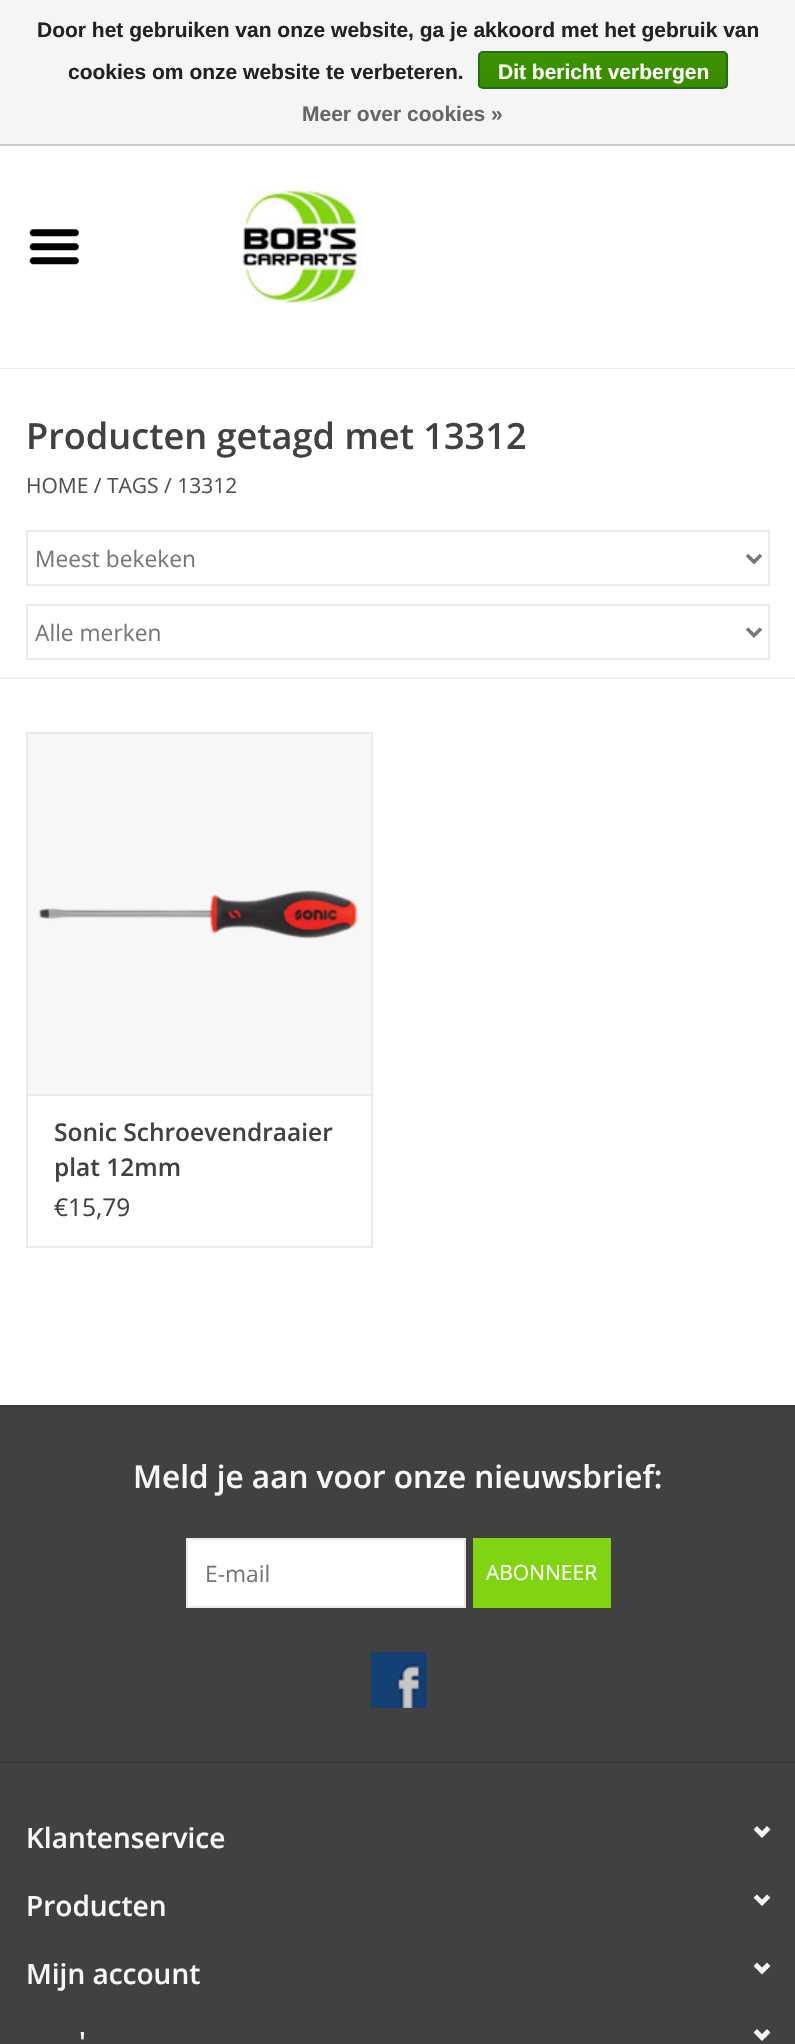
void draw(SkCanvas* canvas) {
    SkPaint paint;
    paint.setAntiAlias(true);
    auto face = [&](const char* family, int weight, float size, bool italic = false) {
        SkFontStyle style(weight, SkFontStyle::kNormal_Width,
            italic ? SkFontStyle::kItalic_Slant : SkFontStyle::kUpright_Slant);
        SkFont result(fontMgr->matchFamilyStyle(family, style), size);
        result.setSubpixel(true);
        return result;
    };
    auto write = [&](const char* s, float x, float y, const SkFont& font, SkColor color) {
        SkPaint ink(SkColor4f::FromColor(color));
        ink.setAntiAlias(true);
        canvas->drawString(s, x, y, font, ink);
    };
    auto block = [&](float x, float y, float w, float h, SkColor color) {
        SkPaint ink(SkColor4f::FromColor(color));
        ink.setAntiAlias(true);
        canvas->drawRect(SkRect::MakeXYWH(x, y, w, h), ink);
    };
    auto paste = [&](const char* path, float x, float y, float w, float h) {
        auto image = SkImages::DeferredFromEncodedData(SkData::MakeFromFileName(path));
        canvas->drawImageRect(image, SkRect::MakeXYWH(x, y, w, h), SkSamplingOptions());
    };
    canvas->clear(SK_ColorWHITE);
    block(0, 0, 795, 144, SkColorSetRGB(245, 245, 245));
    block(0, 144, 795, 2, SkColorSetRGB(204, 204, 204));
    auto kFont1 = face("Liberation Sans", 700, 21);
    write("Door het gebruiken van onze website, ga je akkoord met het gebruik van", 37, 37, kFont1, SkColorSetRGB(34, 34, 34));
    write("cookies om onze website te verbeteren.", 68, 79, kFont1, SkColorSetRGB(34, 34, 34));
    canvas->save();
    canvas->clipPath(SkPathBuilder().moveTo(483, 51).lineTo(723, 51).cubicTo(726, 51, 728, 53, 728, 56).lineTo(728, 84).cubicTo(728, 87, 726, 89, 723, 89).lineTo(483, 89).cubicTo(480, 89, 478, 87, 478, 84).lineTo(478, 56).cubicTo(478, 53, 480, 51, 483, 51).close().detach(), true);
    {
        const SkColor colors[] = {SkColorSetRGB(60, 147, 0), SkColorSetRGB(57, 138, 0)};
        const float stops[] = {0, 1};
        const SkPoint ends[] = {{603, 52}, {603, 88}};
        paint.setShader(SkGradientShader::MakeLinear(ends, colors, stops, 2, SkTileMode::kClamp));
        paint.setAlpha(255);
    }
    canvas->drawRect(SkRect::MakeXYWH(478, 53, 250, 35), paint);
    canvas->restore();
    paint.setStyle(SkPaint::kStroke_Style);
    paint.setStrokeWidth(2);
    paint.setShader(nullptr);
    paint.setColor(SkColorSetRGB(41, 105, 29));
    canvas->drawRoundRect(SkRect::MakeXYWH(479, 52, 248, 36), 4, 4, paint);
    write("Dit bericht verbergen", 498, 79, kFont1, SK_ColorWHITE);
    write("Meer over cookies »", 302, 121, kFont1, SkColorSetRGB(102, 102, 102));
    block(0, 368, 795, 1, SkColorSetRGB(234, 234, 234));
    paste("pic1.png", 240, 189, 124, 114);
    paste("pic2.png", 29, 229, 50, 36);
    auto kFont2 = face("Open Sans", 600, 36.1f);
    write("Producten getagd met 13312", 26, 449, kFont2, SkColorSetRGB(65, 65, 65));
    auto kFont3 = face("Open Sans", 400, 21);
    write("HOME / TAGS / 13312", 26, 493, kFont3, SkColorSetRGB(80, 80, 80));
    block(0, 677, 795, 2, SkColorSetRGB(240, 240, 240));
    paint.setColor(SkColorSetRGB(234, 234, 234));
    canvas->drawRect(SkRect::MakeXYWH(27, 531, 742, 54), paint);
    paint.setStrokeWidth(3.5f);
    paint.setColor(SkColorSetRGB(119, 119, 119));
    canvas->drawPath(SkPathBuilder().moveTo(747, 555).lineTo(754, 562).lineTo(761, 555).detach(), paint);
    auto kFont4 = face("Open Sans", 400, 22.75f);
    write("Meest bekeken", 35, 567, kFont4, SkColorSetRGB(119, 119, 119));
    paint.setStrokeWidth(2);
    paint.setColor(SkColorSetRGB(234, 234, 234));
    canvas->drawRect(SkRect::MakeXYWH(27, 605, 742, 54), paint);
    paint.setStrokeWidth(3.5f);
    paint.setColor(SkColorSetRGB(119, 119, 119));
    canvas->drawPath(SkPathBuilder().moveTo(747, 628.5f).lineTo(754, 635.5f).lineTo(761, 628.5f).detach(), paint);
    write("Alle merken", 35, 641, kFont4, SkColorSetRGB(119, 119, 119));
    block(28, 734, 343, 360, SkColorSetRGB(247, 247, 247));
    block(26, 732, 347, 2, SkColorSetRGB(234, 234, 234));
    block(371, 732, 2, 362, SkColorSetRGB(234, 234, 234));
    block(26, 732, 2, 362, SkColorSetRGB(234, 234, 234));
    paste("pic3.png", 38, 890, 320, 49);
    paint.setStrokeWidth(2);
    paint.setColor(SkColorSetRGB(234, 234, 234));
    canvas->drawRect(SkRect::MakeXYWH(27, 1095, 345, 152), paint);
    auto kFont5 = face("Open Sans", 600, 24.5f);
    write("Sonic Schroevendraaier", 54, 1141, kFont5, SkColorSetRGB(65, 65, 65));
    write("plat 12mm", 54, 1176, kFont5, SkColorSetRGB(65, 65, 65));
    auto kFont6 = face("Open Sans", 400, 24.5f);
    write("€15,79", 54, 1216, kFont6, SkColorSetRGB(65, 65, 65));
    block(0, 1407, 795, 637, SkColorSetRGB(65, 65, 65));
    block(0, 1405, 795, 2, SkColorSetRGB(59, 59, 59));
    auto kFont7 = face("Open Sans", 600, 31.5f);
    write("Meld je aan voor onze nieuwsbrief:", 133, 1488, kFont7, SkColorSetRGB(247, 247, 247));
    paint.setStyle(SkPaint::kFill_Style);
    paint.setColor(SK_ColorWHITE);
    canvas->drawRect(SkRect::MakeXYWH(187, 1539, 278, 68), paint);
    paint.setStyle(SkPaint::kStroke_Style);
    paint.setColor(SkColorSetRGB(233, 233, 233));
    canvas->drawRect(SkRect::MakeXYWH(187, 1539, 278, 68), paint);
    write("E-mail", 205, 1582, kFont4, SkColorSetRGB(119, 119, 119));
    block(473, 1538, 138, 70, SkColorSetRGB(129, 212, 18));
    write("ABONNEER", 486, 1580, kFont3, SK_ColorWHITE);
    paste("pic4.png", 371, 1652, 56, 56);
    block(0, 1761, 795, 2, SkColorSetRGB(59, 59, 59));
    auto kFont8 = face("Open Sans", 600, 28);
    write("Klantenservice", 26, 1848, kFont8, SkColorSetRGB(247, 247, 247));
    paint.setStyle(SkPaint::kFill_Style);
    paint.setColor(SkColorSetRGB(247, 247, 247));
    canvas->drawPath(SkPathBuilder().moveTo(753.5f, 1829.5f).lineTo(762, 1838).lineTo(770.5f, 1829.5f).lineTo(767, 1826).lineTo(762, 1831).lineTo(757, 1826).close().detach(), paint);
    write("Producten", 26, 1916, kFont8, SkColorSetRGB(247, 247, 247));
    canvas->drawPath(SkPathBuilder().moveTo(753.5f, 1897.5f).lineTo(762, 1906).lineTo(770.5f, 1897.5f).lineTo(767, 1894.5f).lineTo(762, 1899.5f).lineTo(757, 1894.5f).close().detach(), paint);
    write("Mijn account", 26, 1984, kFont8, SkColorSetRGB(247, 247, 247));
    canvas->drawPath(SkPathBuilder().moveTo(753.5f, 1966).lineTo(762, 1974.5f).lineTo(770.5f, 1966).lineTo(767, 1962.5f).lineTo(762, 1967.5f).lineTo(757, 1962.5f).close().detach(), paint);
    write("'", 79, 2052, kFont8, SkColorSetRGB(247, 247, 247));
    canvas->drawPath(SkPathBuilder().moveTo(753.5f, 2032.5f).lineTo(762, 2041).lineTo(770.5f, 2032.5f).lineTo(767, 2029).lineTo(762, 2034).lineTo(757, 2029).close().detach(), paint);
}
